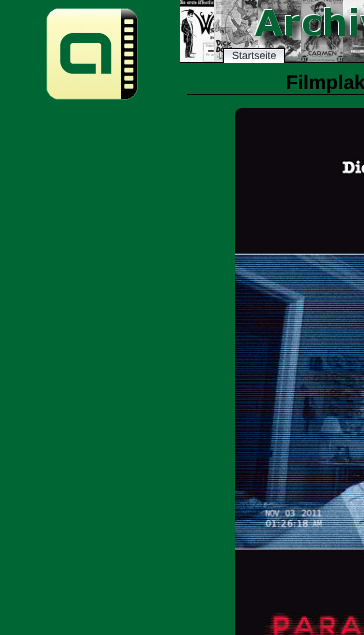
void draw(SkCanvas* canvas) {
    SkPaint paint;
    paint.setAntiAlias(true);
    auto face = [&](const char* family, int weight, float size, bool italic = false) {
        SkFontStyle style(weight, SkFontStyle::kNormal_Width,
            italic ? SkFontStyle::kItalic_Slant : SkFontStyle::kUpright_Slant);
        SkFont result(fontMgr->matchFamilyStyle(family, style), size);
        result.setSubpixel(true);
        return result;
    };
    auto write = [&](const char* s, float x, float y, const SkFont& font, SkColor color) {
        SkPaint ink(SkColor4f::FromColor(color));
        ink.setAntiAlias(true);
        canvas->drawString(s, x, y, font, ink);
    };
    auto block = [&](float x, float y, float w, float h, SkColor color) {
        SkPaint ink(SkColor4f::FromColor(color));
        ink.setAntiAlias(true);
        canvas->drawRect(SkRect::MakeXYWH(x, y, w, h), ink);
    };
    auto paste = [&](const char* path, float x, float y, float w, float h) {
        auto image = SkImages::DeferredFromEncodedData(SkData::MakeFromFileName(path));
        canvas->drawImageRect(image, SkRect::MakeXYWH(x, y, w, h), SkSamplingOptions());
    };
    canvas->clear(SkColorSetRGB(0, 102, 51));
    paste("pic1.png", 46, 8, 92, 92);
    block(180, 62, 184, 1, SK_ColorBLACK);
    paste("pic2.png", 180, 0, 184, 62);
    block(224, 49, 60, 14, SK_ColorWHITE);
    paste("pic3.png", 224, 50, 60, 11);
    block(223, 48, 62, 1, SK_ColorBLACK);
    block(284, 48, 1, 15, SK_ColorBLACK);
    block(223, 48, 1, 15, SK_ColorBLACK);
    auto kFont1 = face("Liberation Sans", 400, 10.5f);
    write("Startseite", 232, 59, kFont1, SkColorSetRGB(51, 51, 51));
    block(187, 94, 177, 1, SK_ColorBLACK);
    auto kFont2 = face("Liberation Sans", 700, 19.5f);
    write("Filmplak", 286, 89, kFont2, SK_ColorBLACK);
    paste("pic4.png", 235, 108, 129, 527);
}
